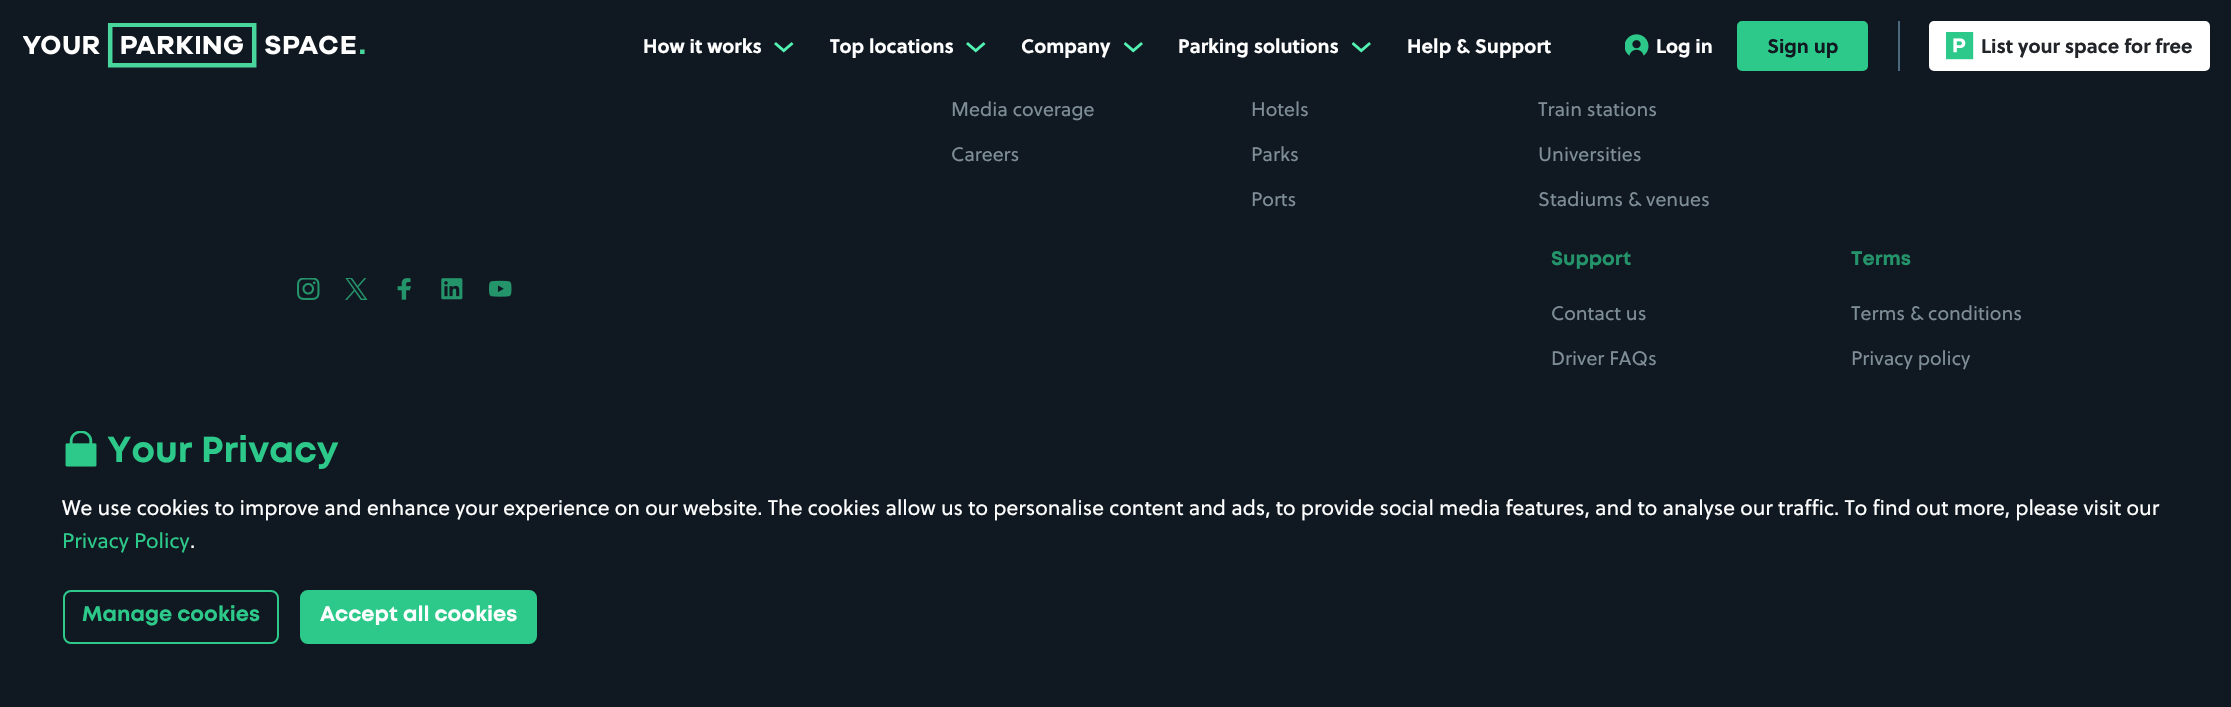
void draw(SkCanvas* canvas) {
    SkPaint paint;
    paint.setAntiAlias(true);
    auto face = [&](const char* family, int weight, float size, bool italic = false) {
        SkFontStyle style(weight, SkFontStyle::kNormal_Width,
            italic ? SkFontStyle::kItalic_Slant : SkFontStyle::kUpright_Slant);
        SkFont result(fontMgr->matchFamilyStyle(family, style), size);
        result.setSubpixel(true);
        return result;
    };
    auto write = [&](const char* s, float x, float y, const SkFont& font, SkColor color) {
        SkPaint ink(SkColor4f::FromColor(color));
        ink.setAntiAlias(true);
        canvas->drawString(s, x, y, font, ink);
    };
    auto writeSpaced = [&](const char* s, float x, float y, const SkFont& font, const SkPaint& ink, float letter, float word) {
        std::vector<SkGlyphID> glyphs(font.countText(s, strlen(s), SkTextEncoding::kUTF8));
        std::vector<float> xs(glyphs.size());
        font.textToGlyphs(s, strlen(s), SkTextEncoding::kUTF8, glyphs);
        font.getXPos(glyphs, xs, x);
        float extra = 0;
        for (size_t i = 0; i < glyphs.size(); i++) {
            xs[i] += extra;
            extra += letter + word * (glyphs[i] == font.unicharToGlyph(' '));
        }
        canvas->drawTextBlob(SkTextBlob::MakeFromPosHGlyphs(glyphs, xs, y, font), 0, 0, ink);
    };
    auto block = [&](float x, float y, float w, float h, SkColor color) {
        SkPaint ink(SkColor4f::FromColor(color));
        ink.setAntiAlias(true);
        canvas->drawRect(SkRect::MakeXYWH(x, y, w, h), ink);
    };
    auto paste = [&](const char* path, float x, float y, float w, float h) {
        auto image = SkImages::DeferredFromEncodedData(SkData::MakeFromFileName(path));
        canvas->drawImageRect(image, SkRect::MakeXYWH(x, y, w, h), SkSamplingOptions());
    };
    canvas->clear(SkColorSetRGB(16, 25, 33));
    paste("pic1.png", 23, 23, 342, 45);
    auto kFont1 = face("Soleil", 700, 19.5f);
    write("How it works", 643, 53, kFont1, SK_ColorWHITE);
    paste("pic2.png", 774, 42, 20, 11);
    write("Top locations", 830, 53, kFont1, SK_ColorWHITE);
    paste("pic2.png", 966, 42, 20, 11);
    write("Company", 1021, 53, kFont1, SK_ColorWHITE);
    paste("pic3.png", 1124, 42, 19, 11);
    write("Parking solutions", 1178, 53, kFont1, SK_ColorWHITE);
    paste("pic3.png", 1352, 42, 19, 11);
    paint.setColor(SK_ColorWHITE);
    writeSpaced("Help & Support", 1407, 53, kFont1, paint, 0.1f, 0);
    paste("pic4.png", 1625, 34, 24, 22);
    write("Log in", 1656, 53, kFont1, SK_ColorWHITE);
    paint.setColor(SkColorSetRGB(45, 201, 138));
    canvas->drawRoundRect(SkRect::MakeXYWH(1738, 22, 129, 48), 4, 4, paint);
    paint.setStyle(SkPaint::kStroke_Style);
    paint.setStrokeWidth(2);
    canvas->drawRoundRect(SkRect::MakeXYWH(1738, 22, 129, 48), 4, 4, paint);
    write("Sign up", 1767, 53, kFont1, SkColorSetRGB(16, 25, 33));
    block(1898, 21, 2, 50, SkColorSetRGB(74, 105, 124));
    paint.setStyle(SkPaint::kFill_Style);
    paint.setColor(SK_ColorWHITE);
    canvas->drawRoundRect(SkRect::MakeXYWH(1930, 22, 279, 48), 4, 4, paint);
    paint.setStyle(SkPaint::kStroke_Style);
    canvas->drawRoundRect(SkRect::MakeXYWH(1930, 22, 279, 48), 4, 4, paint);
    paste("pic5.png", 1946, 32, 28, 28);
    write("List your space for free", 1981, 53, kFont1, SkColorSetRGB(33, 37, 41));
    paste("pic6.png", 297, 278, 23, 22);
    paste("pic7.png", 345, 278, 23, 22);
    paste("pic8.png", 397, 278, 15, 22);
    paste("pic9.png", 441, 278, 22, 22);
    paste("pic10.png", 489, 280, 23, 17);
    auto kFont2 = face("Soleil", 400, 19.5f);
    write("Media coverage", 951, 116, kFont2, SkColorSetRGB(126, 141, 151));
    write("Careers", 951, 161, kFont2, SkColorSetRGB(126, 141, 151));
    write("Hotels", 1251, 116, kFont2, SkColorSetRGB(126, 141, 151));
    write("Train stations", 1538, 116, kFont2, SkColorSetRGB(126, 141, 151));
    write("Parks", 1251, 161, kFont2, SkColorSetRGB(126, 141, 151));
    write("Universities", 1538, 161, kFont2, SkColorSetRGB(126, 141, 151));
    write("Ports", 1251, 206, kFont2, SkColorSetRGB(126, 141, 151));
    write("Stadiums & venues", 1538, 206, kFont2, SkColorSetRGB(126, 141, 151));
    auto kFont3 = face("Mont", 700, 19.5f);
    write("Support", 1551, 265, kFont3, SkColorSetRGB(36, 148, 107));
    write("Contact us", 1551, 320, kFont2, SkColorSetRGB(126, 141, 151));
    write("Driver FAQs", 1551, 365, kFont2, SkColorSetRGB(126, 141, 151));
    write("Terms", 1851, 265, kFont3, SkColorSetRGB(36, 148, 107));
    write("Terms & conditions", 1851, 320, kFont2, SkColorSetRGB(126, 141, 151));
    write("Privacy policy", 1851, 365, kFont2, SkColorSetRGB(126, 141, 151));
    paste("pic11.png", 65, 431, 32, 36);
    auto kFont4 = face("Mont", 700, 36);
    write("Your Privacy", 107, 462, kFont4, SkColorSetRGB(45, 201, 138));
    auto kFont5 = face("Soleil", 400, 21);
    write("We use cookies to improve and enhance your experience on our website. The cookies allow us to personalise content and ads, to provide social media features, and to analyse our traffic. To find out more, please visit our", 62, 515, kFont5, SK_ColorWHITE);
    write("Privacy Policy", 62, 548, kFont5, SkColorSetRGB(45, 201, 138));
    write(".", 190, 548, kFont5, SK_ColorWHITE);
    paint.setColor(SkColorSetRGB(45, 201, 138));
    canvas->drawRoundRect(SkRect::MakeXYWH(64, 591, 214, 52), 7, 7, paint);
    auto kFont6 = face("Mont", 700, 21);
    write("Manage cookies", 82, 621, kFont6, SkColorSetRGB(45, 201, 138));
    paint.setStyle(SkPaint::kFill_Style);
    canvas->drawRoundRect(SkRect::MakeXYWH(301, 591, 235, 52), 7, 7, paint);
    paint.setStyle(SkPaint::kStroke_Style);
    canvas->drawRoundRect(SkRect::MakeXYWH(301, 591, 235, 52), 7, 7, paint);
    write("Accept all cookies", 320, 621, kFont6, SK_ColorWHITE);
}
